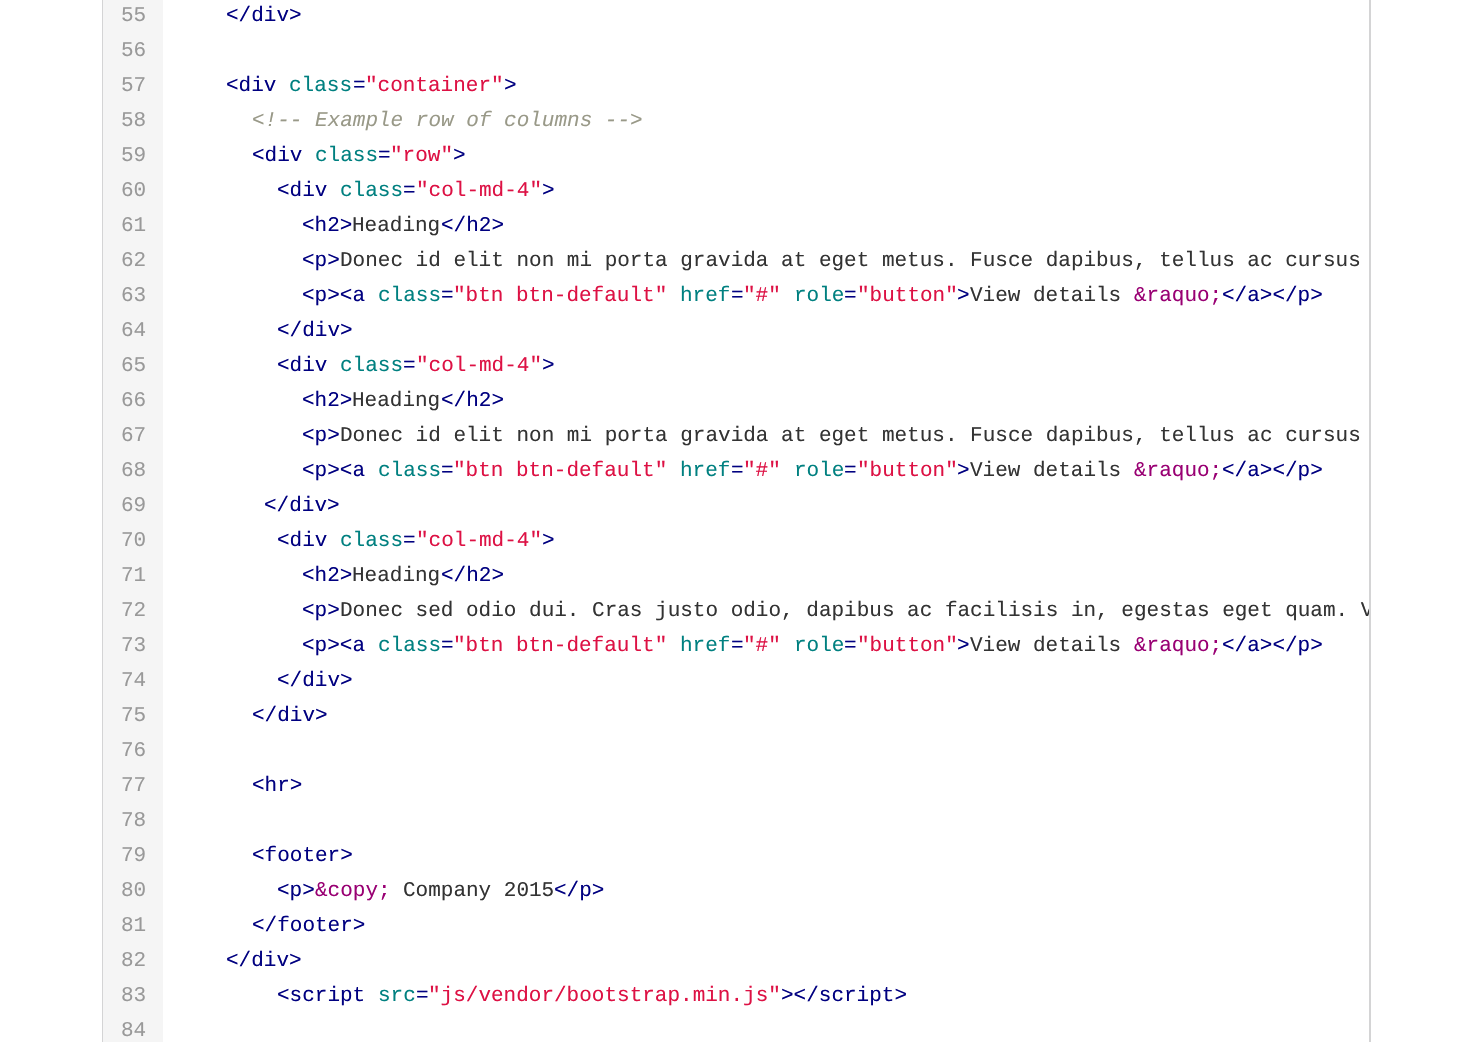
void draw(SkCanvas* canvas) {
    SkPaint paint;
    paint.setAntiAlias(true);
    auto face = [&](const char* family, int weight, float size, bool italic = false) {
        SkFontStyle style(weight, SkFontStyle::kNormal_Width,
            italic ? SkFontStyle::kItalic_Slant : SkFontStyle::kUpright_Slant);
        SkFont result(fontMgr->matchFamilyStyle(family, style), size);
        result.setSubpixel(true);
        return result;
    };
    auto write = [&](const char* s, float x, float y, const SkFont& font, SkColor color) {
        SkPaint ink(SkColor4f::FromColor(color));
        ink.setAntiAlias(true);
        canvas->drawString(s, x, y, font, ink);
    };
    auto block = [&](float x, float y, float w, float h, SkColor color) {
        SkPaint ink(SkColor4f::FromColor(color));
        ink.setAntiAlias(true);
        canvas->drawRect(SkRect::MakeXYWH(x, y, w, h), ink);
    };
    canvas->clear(SK_ColorWHITE);
    block(1369, 0, 2, 1042, SkColorSetRGB(212, 212, 213));
    block(102, 0, 1, 1042, SkColorSetRGB(212, 212, 213));
    block(103, 0, 60, 1042, SkColorSetRGB(245, 245, 245));
    auto kFont1 = face("Liberation Mono", 400, 21);
    write("55", 121, 21, kFont1, SkColorSetRGB(153, 153, 153));
    write("56", 121, 56, kFont1, SkColorSetRGB(153, 153, 153));
    write("57", 121, 91, kFont1, SkColorSetRGB(153, 153, 153));
    write("58", 121, 126, kFont1, SkColorSetRGB(153, 153, 153));
    write("59", 121, 161, kFont1, SkColorSetRGB(153, 153, 153));
    write("60", 121, 196, kFont1, SkColorSetRGB(153, 153, 153));
    write("61", 121, 231, kFont1, SkColorSetRGB(153, 153, 153));
    write("62", 121, 266, kFont1, SkColorSetRGB(153, 153, 153));
    write("63", 121, 301, kFont1, SkColorSetRGB(153, 153, 153));
    write("64", 121, 336, kFont1, SkColorSetRGB(153, 153, 153));
    write("65", 121, 371, kFont1, SkColorSetRGB(153, 153, 153));
    write("66", 121, 406, kFont1, SkColorSetRGB(153, 153, 153));
    write("67", 121, 441, kFont1, SkColorSetRGB(153, 153, 153));
    write("68", 121, 476, kFont1, SkColorSetRGB(153, 153, 153));
    write("69", 121, 511, kFont1, SkColorSetRGB(153, 153, 153));
    write("70", 121, 546, kFont1, SkColorSetRGB(153, 153, 153));
    write("71", 121, 581, kFont1, SkColorSetRGB(153, 153, 153));
    write("72", 121, 616, kFont1, SkColorSetRGB(153, 153, 153));
    write("73", 121, 651, kFont1, SkColorSetRGB(153, 153, 153));
    write("74", 121, 686, kFont1, SkColorSetRGB(153, 153, 153));
    write("75", 121, 721, kFont1, SkColorSetRGB(153, 153, 153));
    write("76", 121, 756, kFont1, SkColorSetRGB(153, 153, 153));
    write("77", 121, 791, kFont1, SkColorSetRGB(153, 153, 153));
    write("78", 121, 826, kFont1, SkColorSetRGB(153, 153, 153));
    write("79", 121, 861, kFont1, SkColorSetRGB(153, 153, 153));
    write("80", 121, 896, kFont1, SkColorSetRGB(153, 153, 153));
    write("81", 121, 931, kFont1, SkColorSetRGB(153, 153, 153));
    write("82", 121, 966, kFont1, SkColorSetRGB(153, 153, 153));
    write("83", 121, 1001, kFont1, SkColorSetRGB(153, 153, 153));
    write("84", 121, 1036, kFont1, SkColorSetRGB(153, 153, 153));
    write("</div>", 226, 21, kFont1, SkColorSetRGB(0, 0, 128));
    write("<div", 226, 91, kFont1, SkColorSetRGB(0, 0, 128));
    write("class", 289, 91, kFont1, SkColorSetRGB(0, 128, 128));
    write("=", 353, 91, kFont1, SkColorSetRGB(0, 0, 128));
    write("\"container\"", 365, 91, kFont1, SkColorSetRGB(221, 17, 68));
    write(">", 504, 91, kFont1, SkColorSetRGB(0, 0, 128));
    auto kFont2 = face("Liberation Mono", 400, 21, true);
    write("<!-- Example row of columns -->", 252, 126, kFont2, SkColorSetRGB(153, 153, 136));
    write("<div", 252, 161, kFont1, SkColorSetRGB(0, 0, 128));
    write("class", 315, 161, kFont1, SkColorSetRGB(0, 128, 128));
    write("=", 378, 161, kFont1, SkColorSetRGB(0, 0, 128));
    write("\"row\"", 390, 161, kFont1, SkColorSetRGB(221, 17, 68));
    write(">", 453, 161, kFont1, SkColorSetRGB(0, 0, 128));
    write("<div", 277, 196, kFont1, SkColorSetRGB(0, 0, 128));
    write("class", 340, 196, kFont1, SkColorSetRGB(0, 128, 128));
    write("=", 403, 196, kFont1, SkColorSetRGB(0, 0, 128));
    write("\"col-md-4\"", 416, 196, kFont1, SkColorSetRGB(221, 17, 68));
    write(">", 542, 196, kFont1, SkColorSetRGB(0, 0, 128));
    write("<h2>", 302, 231, kFont1, SkColorSetRGB(0, 0, 128));
    write("Heading", 352, 231, kFont1, SkColorSetRGB(51, 51, 51));
    write("</h2>", 441, 231, kFont1, SkColorSetRGB(0, 0, 128));
    write("<p>", 302, 266, kFont1, SkColorSetRGB(0, 0, 128));
    write("Donec id elit non mi porta gravida at eget metus. Fusce dapibus, tellus ac cursus", 340, 266, kFont1, SkColorSetRGB(51, 51, 51));
    write("<p><a", 302, 301, kFont1, SkColorSetRGB(0, 0, 128));
    write("class", 378, 301, kFont1, SkColorSetRGB(0, 128, 128));
    write("=", 441, 301, kFont1, SkColorSetRGB(0, 0, 128));
    write("\"btn btn-default\"", 453, 301, kFont1, SkColorSetRGB(221, 17, 68));
    write("href", 680, 301, kFont1, SkColorSetRGB(0, 128, 128));
    write("=", 731, 301, kFont1, SkColorSetRGB(0, 0, 128));
    write("\"#\"", 743, 301, kFont1, SkColorSetRGB(221, 17, 68));
    write("role", 794, 301, kFont1, SkColorSetRGB(0, 128, 128));
    write("=", 844, 301, kFont1, SkColorSetRGB(0, 0, 128));
    write("\"button\"", 857, 301, kFont1, SkColorSetRGB(221, 17, 68));
    write(">", 957, 301, kFont1, SkColorSetRGB(0, 0, 128));
    write("View details", 970, 301, kFont1, SkColorSetRGB(51, 51, 51));
    write("&raquo;", 1134, 301, kFont1, SkColorSetRGB(153, 0, 115));
    write("</a></p>", 1222, 301, kFont1, SkColorSetRGB(0, 0, 128));
    write("</div>", 277, 336, kFont1, SkColorSetRGB(0, 0, 128));
    write("<div", 277, 371, kFont1, SkColorSetRGB(0, 0, 128));
    write("class", 340, 371, kFont1, SkColorSetRGB(0, 128, 128));
    write("=", 403, 371, kFont1, SkColorSetRGB(0, 0, 128));
    write("\"col-md-4\"", 416, 371, kFont1, SkColorSetRGB(221, 17, 68));
    write(">", 542, 371, kFont1, SkColorSetRGB(0, 0, 128));
    write("<h2>", 302, 406, kFont1, SkColorSetRGB(0, 0, 128));
    write("Heading", 352, 406, kFont1, SkColorSetRGB(51, 51, 51));
    write("</h2>", 441, 406, kFont1, SkColorSetRGB(0, 0, 128));
    write("<p>", 302, 441, kFont1, SkColorSetRGB(0, 0, 128));
    write("Donec id elit non mi porta gravida at eget metus. Fusce dapibus, tellus ac cursus", 340, 441, kFont1, SkColorSetRGB(51, 51, 51));
    write("<p><a", 302, 476, kFont1, SkColorSetRGB(0, 0, 128));
    write("class", 378, 476, kFont1, SkColorSetRGB(0, 128, 128));
    write("=", 441, 476, kFont1, SkColorSetRGB(0, 0, 128));
    write("\"btn btn-default\"", 453, 476, kFont1, SkColorSetRGB(221, 17, 68));
    write("href", 680, 476, kFont1, SkColorSetRGB(0, 128, 128));
    write("=", 731, 476, kFont1, SkColorSetRGB(0, 0, 128));
    write("\"#\"", 743, 476, kFont1, SkColorSetRGB(221, 17, 68));
    write("role", 794, 476, kFont1, SkColorSetRGB(0, 128, 128));
    write("=", 844, 476, kFont1, SkColorSetRGB(0, 0, 128));
    write("\"button\"", 857, 476, kFont1, SkColorSetRGB(221, 17, 68));
    write(">", 957, 476, kFont1, SkColorSetRGB(0, 0, 128));
    write("View details", 970, 476, kFont1, SkColorSetRGB(51, 51, 51));
    write("&raquo;", 1134, 476, kFont1, SkColorSetRGB(153, 0, 115));
    write("</a></p>", 1222, 476, kFont1, SkColorSetRGB(0, 0, 128));
    write("</div>", 264, 511, kFont1, SkColorSetRGB(0, 0, 128));
    write("<div", 277, 546, kFont1, SkColorSetRGB(0, 0, 128));
    write("class", 340, 546, kFont1, SkColorSetRGB(0, 128, 128));
    write("=", 403, 546, kFont1, SkColorSetRGB(0, 0, 128));
    write("\"col-md-4\"", 416, 546, kFont1, SkColorSetRGB(221, 17, 68));
    write(">", 542, 546, kFont1, SkColorSetRGB(0, 0, 128));
    write("<h2>", 302, 581, kFont1, SkColorSetRGB(0, 0, 128));
    write("Heading", 352, 581, kFont1, SkColorSetRGB(51, 51, 51));
    write("</h2>", 441, 581, kFont1, SkColorSetRGB(0, 0, 128));
    write("<p>", 302, 616, kFont1, SkColorSetRGB(0, 0, 128));
    canvas->save();
    canvas->clipRect(SkRect::MakeXYWH(163, 0, 1206, 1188));
    write("Donec sed odio dui. Cras justo odio, dapibus ac facilisis in, egestas eget quam. V", 340, 616, kFont1, SkColorSetRGB(51, 51, 51));
    canvas->restore();
    write("<p><a", 302, 651, kFont1, SkColorSetRGB(0, 0, 128));
    write("class", 378, 651, kFont1, SkColorSetRGB(0, 128, 128));
    write("=", 441, 651, kFont1, SkColorSetRGB(0, 0, 128));
    write("\"btn btn-default\"", 453, 651, kFont1, SkColorSetRGB(221, 17, 68));
    write("href", 680, 651, kFont1, SkColorSetRGB(0, 128, 128));
    write("=", 731, 651, kFont1, SkColorSetRGB(0, 0, 128));
    write("\"#\"", 743, 651, kFont1, SkColorSetRGB(221, 17, 68));
    write("role", 794, 651, kFont1, SkColorSetRGB(0, 128, 128));
    write("=", 844, 651, kFont1, SkColorSetRGB(0, 0, 128));
    write("\"button\"", 857, 651, kFont1, SkColorSetRGB(221, 17, 68));
    write(">", 957, 651, kFont1, SkColorSetRGB(0, 0, 128));
    write("View details", 970, 651, kFont1, SkColorSetRGB(51, 51, 51));
    write("&raquo;", 1134, 651, kFont1, SkColorSetRGB(153, 0, 115));
    write("</a></p>", 1222, 651, kFont1, SkColorSetRGB(0, 0, 128));
    write("</div>", 277, 686, kFont1, SkColorSetRGB(0, 0, 128));
    write("</div>", 252, 721, kFont1, SkColorSetRGB(0, 0, 128));
    write("<hr>", 252, 791, kFont1, SkColorSetRGB(0, 0, 128));
    write("<footer>", 252, 861, kFont1, SkColorSetRGB(0, 0, 128));
    write("<p>", 277, 896, kFont1, SkColorSetRGB(0, 0, 128));
    write("&copy;", 315, 896, kFont1, SkColorSetRGB(153, 0, 115));
    write("Company 2015", 403, 896, kFont1, SkColorSetRGB(51, 51, 51));
    write("</p>", 554, 896, kFont1, SkColorSetRGB(0, 0, 128));
    write("</footer>", 252, 931, kFont1, SkColorSetRGB(0, 0, 128));
    write("</div>", 226, 966, kFont1, SkColorSetRGB(0, 0, 128));
    write("<script", 277, 1001, kFont1, SkColorSetRGB(0, 0, 128));
    write("src", 378, 1001, kFont1, SkColorSetRGB(0, 128, 128));
    write("=", 416, 1001, kFont1, SkColorSetRGB(0, 0, 128));
    write("\"js/vendor/bootstrap.min.js\"", 428, 1001, kFont1, SkColorSetRGB(221, 17, 68));
    write("></script>", 781, 1001, kFont1, SkColorSetRGB(0, 0, 128));
}
